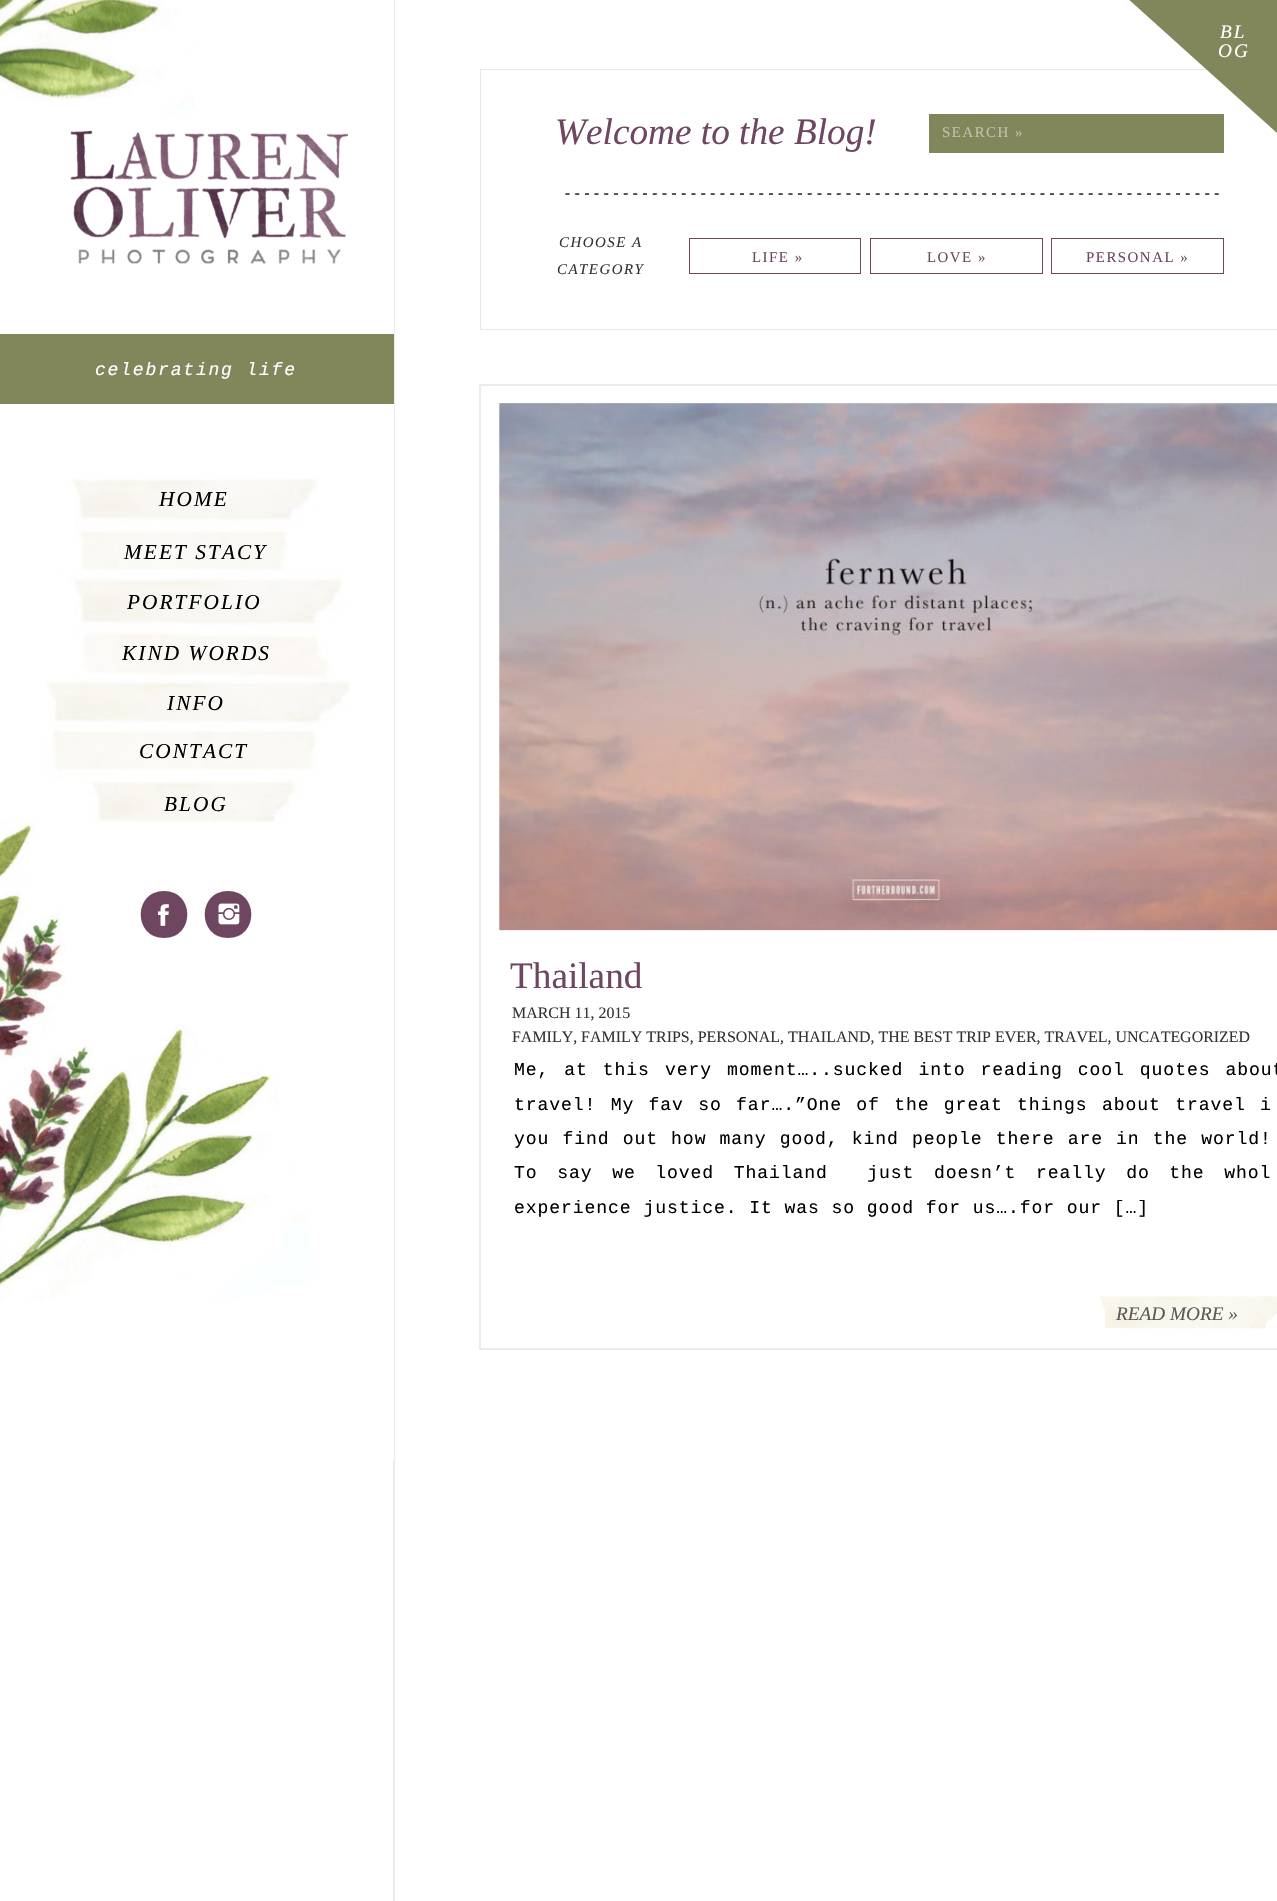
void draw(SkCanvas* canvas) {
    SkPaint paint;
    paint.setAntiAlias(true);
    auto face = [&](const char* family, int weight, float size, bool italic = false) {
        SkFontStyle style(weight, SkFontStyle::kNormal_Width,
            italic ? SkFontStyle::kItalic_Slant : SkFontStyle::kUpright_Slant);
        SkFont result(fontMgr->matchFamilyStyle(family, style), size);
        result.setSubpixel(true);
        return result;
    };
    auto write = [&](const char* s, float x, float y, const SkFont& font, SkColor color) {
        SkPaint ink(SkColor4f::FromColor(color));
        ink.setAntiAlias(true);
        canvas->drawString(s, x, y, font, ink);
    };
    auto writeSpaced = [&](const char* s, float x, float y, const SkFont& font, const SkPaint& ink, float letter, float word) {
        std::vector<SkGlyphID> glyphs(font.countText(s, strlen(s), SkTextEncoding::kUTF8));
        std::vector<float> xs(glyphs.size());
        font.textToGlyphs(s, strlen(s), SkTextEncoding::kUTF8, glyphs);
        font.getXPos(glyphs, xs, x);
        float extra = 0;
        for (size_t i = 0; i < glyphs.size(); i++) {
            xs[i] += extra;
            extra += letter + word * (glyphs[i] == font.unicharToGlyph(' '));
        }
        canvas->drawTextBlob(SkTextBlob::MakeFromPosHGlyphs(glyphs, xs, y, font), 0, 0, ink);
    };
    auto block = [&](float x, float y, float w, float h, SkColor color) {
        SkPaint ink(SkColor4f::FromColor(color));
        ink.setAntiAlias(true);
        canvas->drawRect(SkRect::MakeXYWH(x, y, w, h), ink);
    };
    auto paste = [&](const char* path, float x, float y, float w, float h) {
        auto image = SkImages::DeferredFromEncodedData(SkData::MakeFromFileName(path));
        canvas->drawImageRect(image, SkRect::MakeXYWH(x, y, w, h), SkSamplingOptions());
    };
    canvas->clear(SK_ColorWHITE);
    paint.setStyle(SkPaint::kStroke_Style);
    paint.setStrokeWidth(2);
    paint.setColor(SkColorSetRGB(235, 235, 235));
    canvas->drawRect(SkRect::MakeXYWH(-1, 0, 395, 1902), paint);
    block(0, 0, 394, 1460, SK_ColorWHITE);
    paste("pic1.png", 0, 0, 195, 115);
    paint.setStrokeWidth(1);
    paint.setColor(SkColorSetRGB(230, 230, 230));
    canvas->drawRect(SkRect::MakeXYWH(480.5f, 69.5f, 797, 260), paint);
    block(929, 114, 295, 39, SkColorSetRGB(130, 134, 91));
    paint.setStyle(SkPaint::kFill_Style);
    paint.setColor(SkColorSetRGB(130, 134, 91));
    canvas->drawPath(SkPathBuilder().moveTo(1243, -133).lineTo(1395, 4).lineTo(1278, 134).lineTo(1126, -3).close().detach(), paint);
    auto kFont1 = face("Liberation Serif", 400, 19.25f, true);
    paint.setColor(SK_ColorWHITE);
    writeSpaced("BL", 1220, 38, kFont1, paint, 2, 0);
    writeSpaced("OG", 1218, 57, kFont1, paint, 2, 0);
    paste("pic2.png", 70, 130, 279, 134);
    block(0, 334, 394, 70, SkColorSetRGB(130, 134, 91));
    auto kFont2 = face("Liberation Mono", 400, 18.1f, true);
    writeSpaced("celebrating life", 95, 375, kFont2, paint, 1.75f, 0);
    paste("pic3.png", 46, 478, 304, 345);
    paste("pic4.png", 0, 821, 66, 241);
    paint.setColor(SkColorSetRGB(110, 70, 96));
    canvas->drawPath(SkPathBuilder().moveTo(164, 938).cubicTo(195, 938, 195, 891, 164, 891).cubicTo(133, 891, 133, 938, 164, 938).close().detach(), paint);
    canvas->drawPath(SkPathBuilder().moveTo(228, 938).cubicTo(259, 938, 259, 891, 228, 891).cubicTo(197, 891, 197, 938, 228, 938).close().detach(), paint);
    paste("pic5.png", 158, 904, 11, 22);
    paste("pic6.png", 218, 903, 22, 22);
    paste("pic7.png", 0, 1025, 317, 277);
    auto kFont3 = face("Liberation Serif", 400, 21.25f, true);
    paint.setColor(SK_ColorBLACK);
    writeSpaced("HOME", 159, 506, kFont3, paint, 2.1f, 0);
    writeSpaced("MEET STACY", 124, 559, kFont3, paint, 2.1f, 0);
    writeSpaced("PORTFOLIO", 127, 609, kFont3, paint, 2.1f, 0);
    writeSpaced("KIND WORDS", 122, 660, kFont3, paint, 2.1f, 0);
    writeSpaced("INFO", 167, 710, kFont3, paint, 2.1f, 0);
    writeSpaced("CONTACT", 139, 758, kFont3, paint, 2.1f, 0);
    writeSpaced("BLOG", 164, 811, kFont3, paint, 2.1f, 0);
    auto kFont4 = face("Liberation Serif", 400, 37.25f, true);
    write("Welcome to the Blog!", 555, 144, kFont4, SkColorSetRGB(110, 70, 96));
    auto kFont5 = face("Liberation Serif", 400, 14.9f);
    paint.setColor(SkColorSetRGB(193, 195, 173));
    writeSpaced("SEARCH »", 942, 137, kFont5, paint, 1.5f, 0);
    auto kFont6 = face("Liberation Mono", 400, 14.9f);
    paint.setColor(SK_ColorBLACK);
    writeSpaced("--------------------------------------------------------------------", 563, 198, kFont6, paint, 0.75f, 0);
    auto kFont7 = face("Liberation Serif", 400, 14.9f, true);
    paint.setColor(SkColorSetRGB(51, 51, 51));
    writeSpaced("CHOOSE A", 559, 247, kFont7, paint, 1.5f, 0);
    writeSpaced("CATEGORY", 557, 274, kFont7, paint, 1.5f, 0);
    paint.setStyle(SkPaint::kStroke_Style);
    paint.setColor(SkColorSetRGB(110, 70, 96));
    canvas->drawRect(SkRect::MakeXYWH(689.5f, 238.5f, 171, 35), paint);
    canvas->drawRect(SkRect::MakeXYWH(870.5f, 238.5f, 172, 35), paint);
    canvas->drawRect(SkRect::MakeXYWH(1051.5f, 238.5f, 172, 35), paint);
    paint.setStyle(SkPaint::kFill_Style);
    writeSpaced("LIFE »", 752, 262, kFont5, paint, 1.5f, 0);
    writeSpaced("LOVE »", 927, 262, kFont5, paint, 1.5f, 0);
    writeSpaced("PERSONAL »", 1086, 262, kFont5, paint, 1.5f, 0);
    paint.setStyle(SkPaint::kStroke_Style);
    paint.setStrokeWidth(2);
    paint.setColor(SkColorSetRGB(235, 235, 235));
    canvas->drawRect(SkRect::MakeXYWH(480, 385, 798, 964), paint);
    paste("pic8.png", 499, 403, 778, 528);
    auto kFont8 = face("Liberation Serif", 400, 37.25f);
    write("Thailand", 510, 988, kFont8, SkColorSetRGB(110, 70, 96));
    auto kFont9 = face("Liberation Serif", 400, 15.95f);
    write("MARCH 11, 2015", 512, 1018, kFont9, SkColorSetRGB(51, 51, 51));
    write("FAMILY, FAMILY TRIPS, PERSONAL, THAILAND, THE BEST TRIP EVER, TRAVEL, UNCATEGORIZED", 512, 1042, kFont9, SkColorSetRGB(51, 51, 51));
    auto kFont10 = face("Liberation Mono", 400, 18.1f);
    paint.setStyle(SkPaint::kFill_Style);
    paint.setColor(SK_ColorBLACK);
    writeSpaced("Me, at this very moment…..sucked into reading cool quotes about", 514, 1075, kFont10, paint, 0.9f, 3.25f);
    writeSpaced("travel! My fav so far….”One of the great things about travel i", 514, 1110, kFont10, paint, 0.9f, 2.6f);
    writeSpaced("you find out how many good, kind people there are in the world!", 514, 1144, kFont10, paint, 0.9f, 1.4f);
    writeSpaced("To say we loved Thailand  just doesn’t really do the whol", 514, 1178, kFont10, paint, 0.9f, 7.9f);
    writeSpaced("experience justice. It was so good for us….for our […]", 514, 1213, kFont10, paint, 0.9f, 0);
    paste("pic9.png", 1098, 1296, 179, 33);
    write("READ MORE »", 1116, 1320, kFont1, SkColorSetRGB(90, 90, 88));
}
